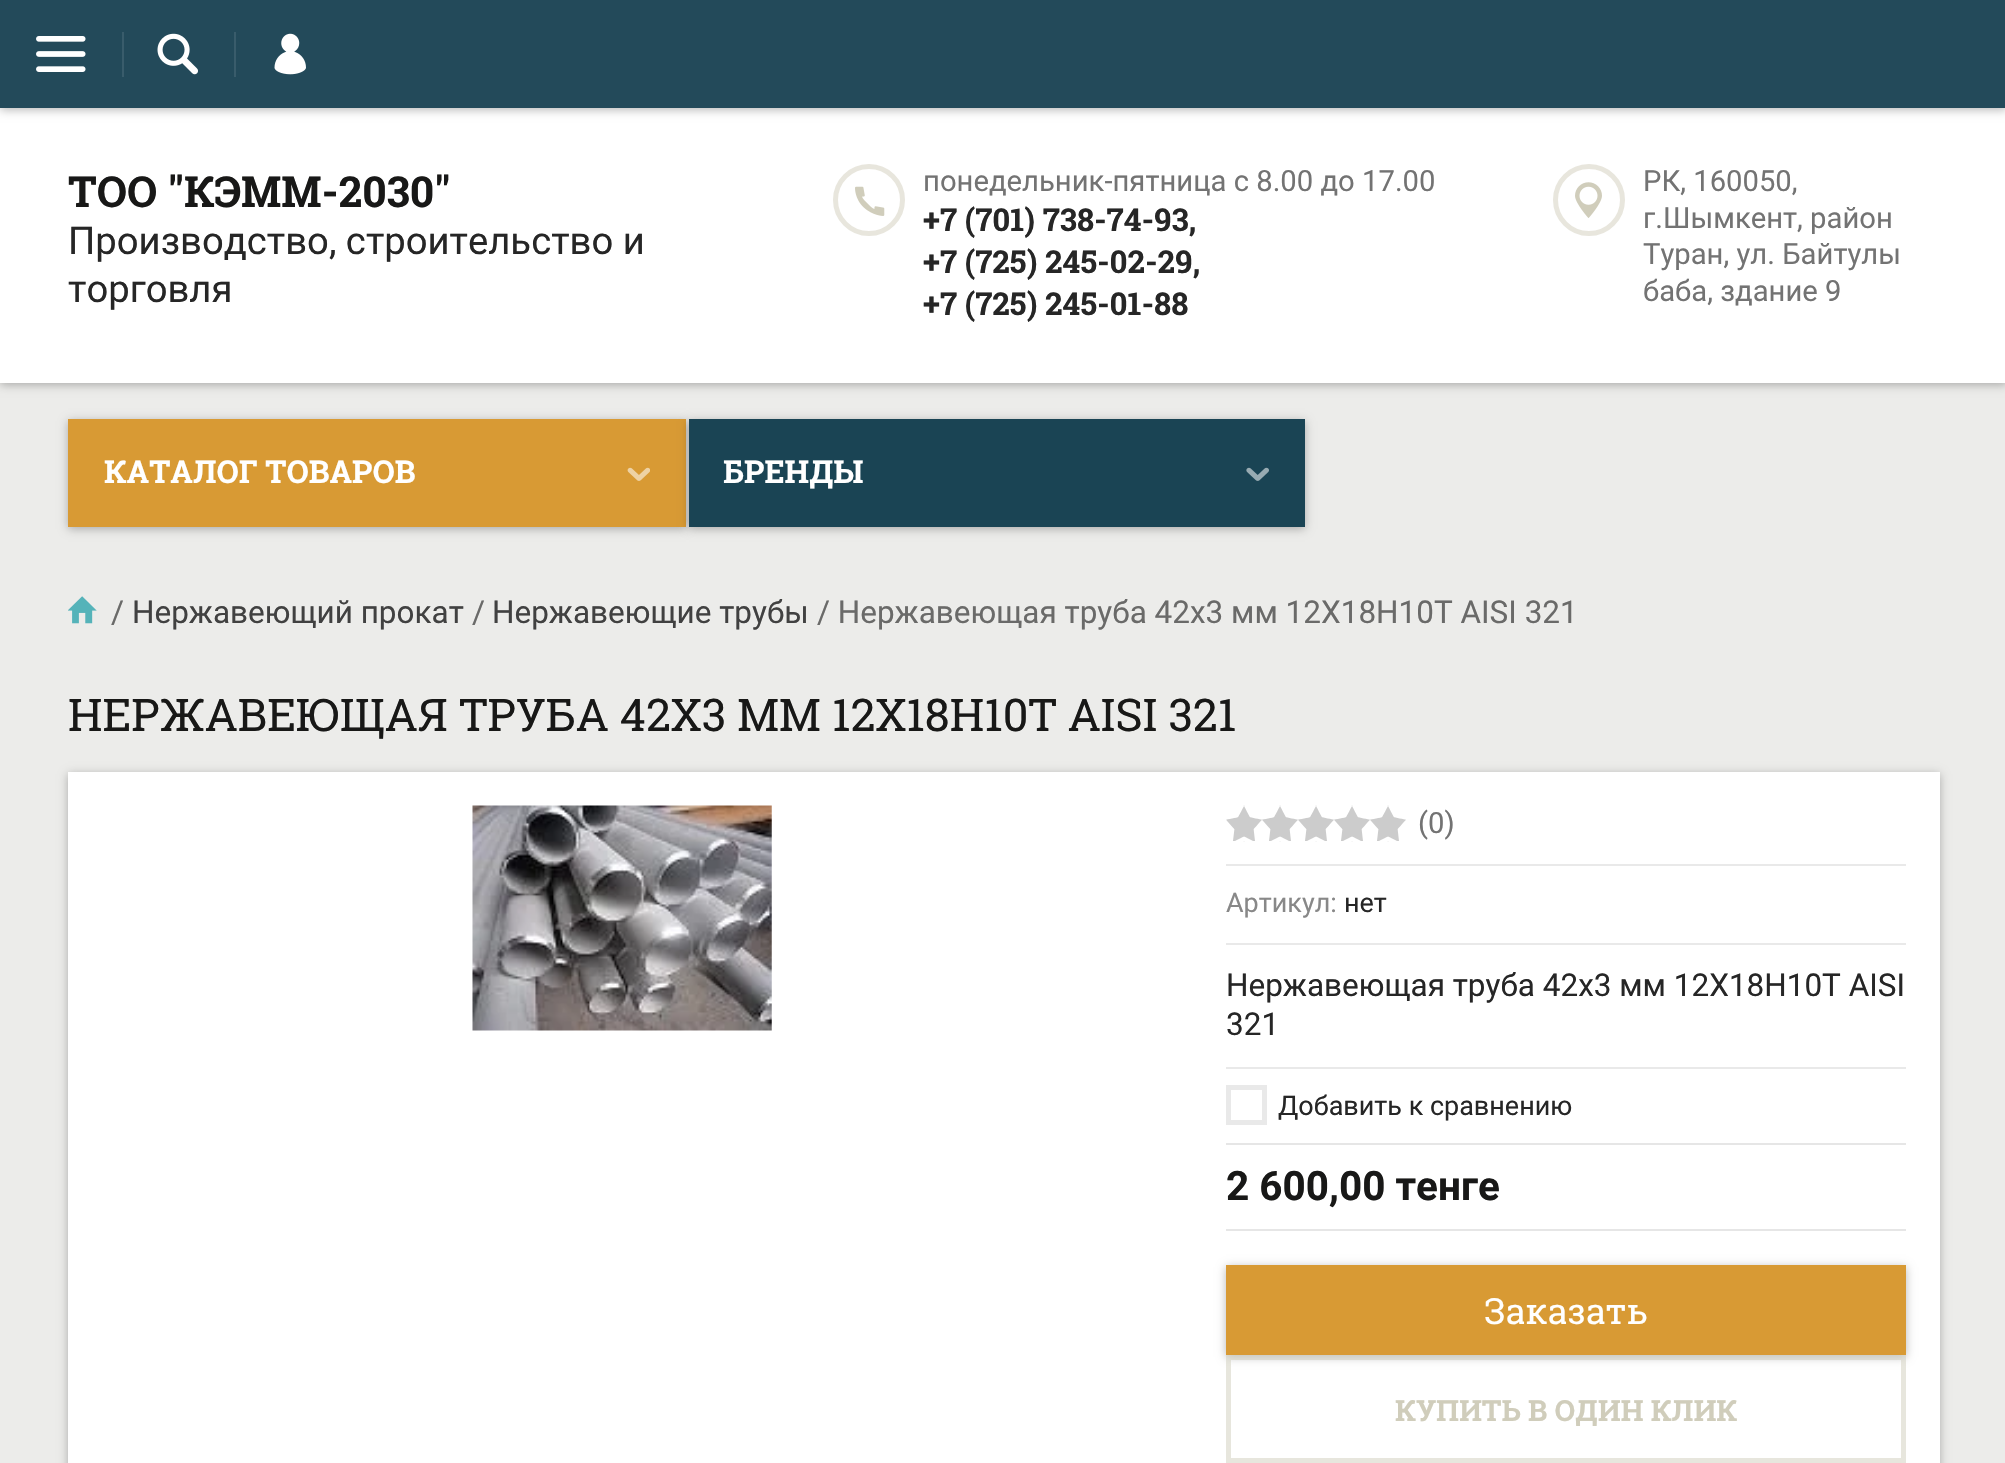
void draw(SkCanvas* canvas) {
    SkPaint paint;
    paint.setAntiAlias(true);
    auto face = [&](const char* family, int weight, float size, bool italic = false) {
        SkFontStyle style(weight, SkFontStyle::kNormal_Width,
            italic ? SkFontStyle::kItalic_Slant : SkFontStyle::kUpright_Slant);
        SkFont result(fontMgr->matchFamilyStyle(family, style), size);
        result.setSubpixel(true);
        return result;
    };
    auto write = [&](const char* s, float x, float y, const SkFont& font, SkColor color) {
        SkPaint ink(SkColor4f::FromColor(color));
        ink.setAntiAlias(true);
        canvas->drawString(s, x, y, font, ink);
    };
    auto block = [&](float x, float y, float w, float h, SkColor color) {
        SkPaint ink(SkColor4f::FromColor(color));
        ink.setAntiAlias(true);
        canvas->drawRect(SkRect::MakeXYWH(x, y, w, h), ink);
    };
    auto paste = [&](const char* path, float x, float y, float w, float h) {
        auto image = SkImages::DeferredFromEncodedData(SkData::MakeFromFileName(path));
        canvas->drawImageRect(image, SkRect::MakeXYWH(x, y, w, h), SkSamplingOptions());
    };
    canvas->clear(SkColorSetRGB(236, 236, 234));
    paint.setColor(SkColorSetARGB(71, 0, 0, 0));
    paint.setMaskFilter(SkMaskFilter::MakeBlur(kNormal_SkBlurStyle, 4.5f));
    canvas->drawRect(SkRect::MakeXYWH(0, 110, 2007, 275), paint);
    paint.setMaskFilter(nullptr);
    block(0, 108, 2005, 275, SK_ColorWHITE);
    paint.setMaskFilter(SkMaskFilter::MakeBlur(kNormal_SkBlurStyle, 4.5f));
    canvas->drawRect(SkRect::MakeXYWH(0, 2, 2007, 108), paint);
    paint.setMaskFilter(nullptr);
    block(0, 0, 2005, 108, SkColorSetRGB(35, 74, 90));
    paste("pic1.png", 36, 36, 50, 36);
    block(122, 32, 2, 45, SkColorSetRGB(57, 92, 107));
    paste("pic2.png", 157, 33, 41, 42);
    block(234, 32, 2, 45, SkColorSetRGB(57, 92, 107));
    paste("pic3.png", 274, 33, 32, 42);
    auto kFont1 = face("Roboto Slab", 700, 42.75f);
    write("ТОО \"КЭММ-2030\"", 68, 207, kFont1, SkColorSetRGB(24, 24, 23));
    auto kFont2 = face("Roboto", 400, 38.25f);
    write("Производство, строительство и", 68, 254, kFont2, SkColorSetRGB(38, 38, 38));
    write("торговля", 68, 302, kFont2, SkColorSetRGB(38, 38, 38));
    paint.setStyle(SkPaint::kStroke_Style);
    paint.setStrokeWidth(5);
    paint.setColor(SkColorSetRGB(232, 230, 221));
    canvas->drawCircle(869, 200, 33.5f, paint);
    paste("pic4.png", 855, 186, 30, 30);
    auto kFont3 = face("Roboto", 400, 29.25f);
    write("понедельник-пятница c 8.00 до 17.00", 923, 191, kFont3, SkColorSetRGB(115, 115, 115));
    auto kFont4 = face("Roboto Slab", 700, 31.5f);
    write("+7 (701) 738-74-93,", 923, 231, kFont4, SkColorSetRGB(38, 38, 38));
    write("+7 (725) 245-02-29,", 923, 273, kFont4, SkColorSetRGB(38, 38, 38));
    write("+7 (725) 245-01-88", 923, 315, kFont4, SkColorSetRGB(38, 38, 38));
    canvas->drawCircle(1589, 200, 33.5f, paint);
    paste("pic5.png", 1575, 182, 27, 36);
    write("РК, 160050,", 1643, 191, kFont3, SkColorSetRGB(115, 115, 115));
    write("г.Шымкент, район", 1643, 228, kFont3, SkColorSetRGB(115, 115, 115));
    write("Туран, ул. Байтулы", 1643, 264, kFont3, SkColorSetRGB(115, 115, 115));
    write("баба, здание 9", 1643, 301, kFont3, SkColorSetRGB(115, 115, 115));
    paint.setStyle(SkPaint::kFill_Style);
    paint.setColor(SkColorSetARGB(71, 0, 0, 0));
    paint.setMaskFilter(SkMaskFilter::MakeBlur(kNormal_SkBlurStyle, 4.5f));
    canvas->drawRect(SkRect::MakeXYWH(68, 421, 618, 108), paint);
    paint.setMaskFilter(nullptr);
    block(68, 419, 618, 108, SkColorSetRGB(216, 154, 52));
    write("КАТАЛОГ ТОВАРОВ", 104, 483, kFont4, SK_ColorWHITE);
    paste("pic6.png", 627, 467, 23, 14);
    paint.setMaskFilter(SkMaskFilter::MakeBlur(kNormal_SkBlurStyle, 4.5f));
    canvas->drawRect(SkRect::MakeXYWH(689, 421, 616, 108), paint);
    paint.setMaskFilter(nullptr);
    block(689, 419, 616, 108, SkColorSetRGB(26, 68, 84));
    write("БРЕНДЫ", 723, 483, kFont4, SK_ColorWHITE);
    paste("pic7.png", 1246, 467, 23, 14);
    paste("pic8.png", 68, 596, 29, 28);
    auto kFont5 = face("Roboto", 400, 31.5f);
    write("/", 111, 623, kFont5, SkColorSetRGB(106, 106, 105));
    write("Нержавеющий прокат", 132, 623, kFont5, SkColorSetRGB(65, 65, 65));
    write("/", 472, 623, kFont5, SkColorSetRGB(106, 106, 105));
    write("Нержавеющие трубы", 492, 623, kFont5, SkColorSetRGB(65, 65, 65));
    write("/ Нержавеющая труба 42х3 мм 12Х18Н10Т AISI 321", 817, 623, kFont5, SkColorSetRGB(106, 106, 105));
    auto kFont6 = face("Roboto Slab", 400, 45);
    write("НЕРЖАВЕЮЩАЯ ТРУБА 42Х3 ММ 12Х18Н10Т AISI 321", 68, 731, kFont6, SkColorSetRGB(24, 24, 23));
    paint.setMaskFilter(SkMaskFilter::MakeBlur(kNormal_SkBlurStyle, 4.5f));
    canvas->drawRect(SkRect::MakeXYWH(68, 774, 1872, 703), paint);
    paint.setMaskFilter(nullptr);
    block(68, 772, 1872, 691, SK_ColorWHITE);
    paste("pic9.png", 472, 805, 300, 226);
    paste("pic10.png", 1226, 805, 180, 37);
    write("(0)", 1418, 833, kFont3, SkColorSetRGB(115, 115, 115));
    block(1226, 864, 680, 2, SkColorSetRGB(233, 233, 233));
    auto kFont7 = face("Roboto", 400, 27);
    write("Артикул:", 1226, 912, kFont7, SkColorSetRGB(136, 136, 136));
    write("нет", 1344, 912, kFont7, SkColorSetRGB(38, 38, 38));
    block(1226, 943, 680, 2, SkColorSetRGB(233, 233, 233));
    write("Нержавеющая труба 42х3 мм 12Х18Н10Т AISI", 1226, 996, kFont5, SkColorSetRGB(38, 38, 38));
    write("321", 1226, 1035, kFont5, SkColorSetRGB(38, 38, 38));
    block(1226, 1067, 680, 2, SkColorSetRGB(233, 233, 233));
    paint.setStyle(SkPaint::kStroke_Style);
    paint.setColor(SkColorSetRGB(233, 233, 233));
    canvas->drawRect(SkRect::MakeXYWH(1228.5f, 1087.5f, 36, 35), paint);
    write("Добавить к сравнению", 1278, 1115, kFont7, SkColorSetRGB(38, 38, 38));
    block(1226, 1143, 680, 2, SkColorSetRGB(230, 230, 230));
    auto kFont8 = face("Roboto", 700, 40.5f);
    write("2 600,00 тенге", 1226, 1200, kFont8, SkColorSetRGB(24, 24, 23));
    block(1226, 1229, 680, 2, SkColorSetRGB(230, 230, 230));
    paint.setStyle(SkPaint::kFill_Style);
    paint.setColor(SkColorSetARGB(71, 0, 0, 0));
    paint.setMaskFilter(SkMaskFilter::MakeBlur(kNormal_SkBlurStyle, 4.5f));
    canvas->drawRect(SkRect::MakeXYWH(1226, 1267, 680, 90), paint);
    paint.setMaskFilter(nullptr);
    block(1226, 1265, 680, 90, SkColorSetRGB(216, 154, 52));
    auto kFont9 = face("Roboto Slab", 400, 36);
    write("Заказать", 1484, 1324, kFont9, SK_ColorWHITE);
    paint.setStyle(SkPaint::kStroke_Style);
    paint.setColor(SkColorSetARGB(128, 208, 205, 187));
    canvas->drawRect(SkRect::MakeXYWH(1228.5f, 1357.5f, 675, 103), paint);
    auto kFont10 = face("Roboto Slab", 700, 29.25f);
    write("КУПИТЬ В ОДИН КЛИК", 1395, 1421, kFont10, SkColorSetRGB(208, 205, 187));
}
